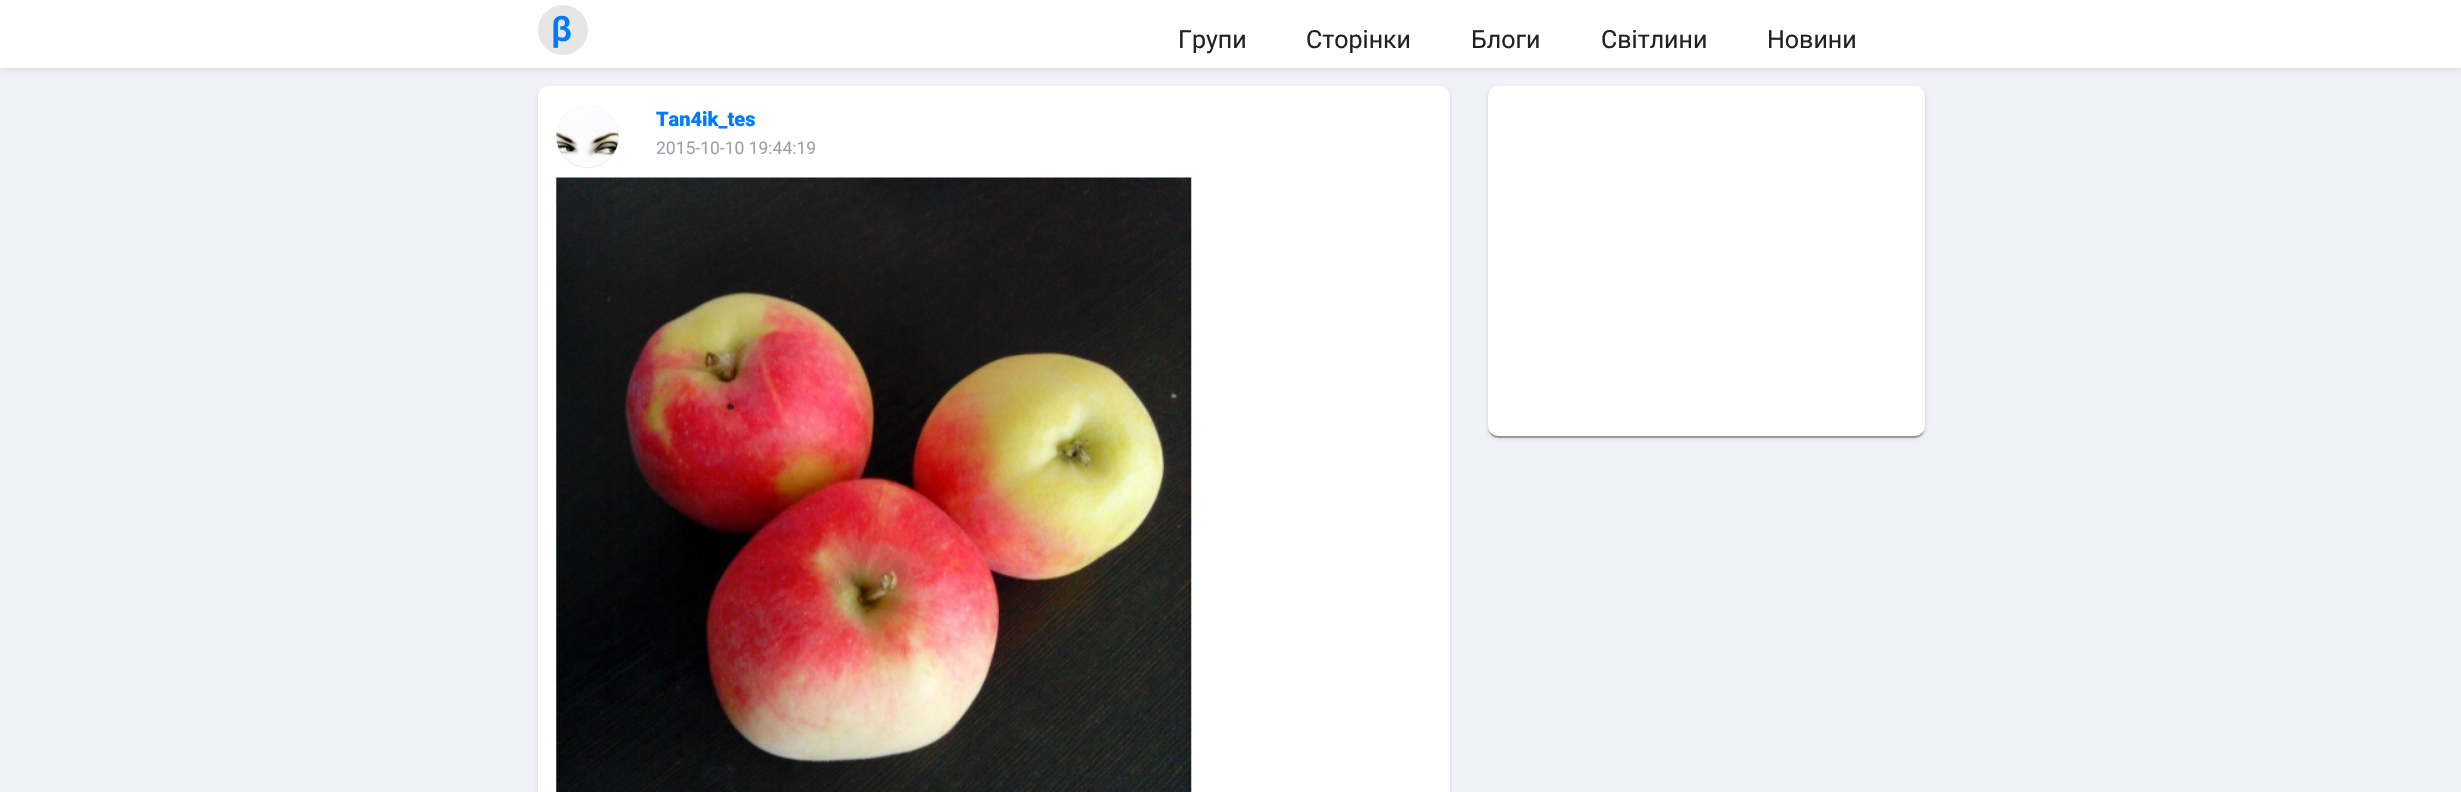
void draw(SkCanvas* canvas) {
    SkPaint paint;
    paint.setAntiAlias(true);
    auto face = [&](const char* family, int weight, float size, bool italic = false) {
        SkFontStyle style(weight, SkFontStyle::kNormal_Width,
            italic ? SkFontStyle::kItalic_Slant : SkFontStyle::kUpright_Slant);
        SkFont result(fontMgr->matchFamilyStyle(family, style), size);
        result.setSubpixel(true);
        return result;
    };
    auto write = [&](const char* s, float x, float y, const SkFont& font, SkColor color) {
        SkPaint ink(SkColor4f::FromColor(color));
        ink.setAntiAlias(true);
        canvas->drawString(s, x, y, font, ink);
    };
    auto block = [&](float x, float y, float w, float h, SkColor color) {
        SkPaint ink(SkColor4f::FromColor(color));
        ink.setAntiAlias(true);
        canvas->drawRect(SkRect::MakeXYWH(x, y, w, h), ink);
    };
    auto card = [&](float x, float y, float w, float h, float radius, SkColor color) {
        SkPaint ink(SkColor4f::FromColor(color));
        ink.setAntiAlias(true);
        canvas->drawRoundRect(SkRect::MakeXYWH(x, y, w, h), radius, radius, ink);
    };
    auto paste = [&](const char* path, float x, float y, float w, float h) {
        auto image = SkImages::DeferredFromEncodedData(SkData::MakeFromFileName(path));
        canvas->drawImageRect(image, SkRect::MakeXYWH(x, y, w, h), SkSamplingOptions());
    };
    canvas->clear(SkColorSetRGB(240, 242, 247));
    paint.setColor(SkColorSetARGB(26, 0, 0, 0));
    paint.setMaskFilter(SkMaskFilter::MakeBlur(kNormal_SkBlurStyle, 3));
    canvas->drawRect(SkRect::MakeXYWH(0, 1, 2461, 68), paint);
    paint.setMaskFilter(nullptr);
    block(0, 0, 2461, 68, SK_ColorWHITE);
    paint.setColor(SkColorSetRGB(230, 230, 230));
    canvas->drawCircle(563, 30, 25, paint);
    auto kFont1 = face("Roboto", 600, 35);
    write("β", 551, 41, kFont1, SkColorSetRGB(0, 123, 255));
    auto kFont2 = face("Roboto", 400, 25);
    write("Групи", 1178, 48, kFont2, SkColorSetRGB(33, 33, 33));
    write("Сторінки", 1306, 48, kFont2, SkColorSetRGB(33, 33, 33));
    write("Блоги", 1471, 48, kFont2, SkColorSetRGB(33, 33, 33));
    write("Світлини", 1601, 48, kFont2, SkColorSetRGB(33, 33, 33));
    write("Новини", 1767, 48, kFont2, SkColorSetRGB(33, 33, 33));
    paint.setColor(SkColorSetARGB(31, 0, 0, 0));
    paint.setMaskFilter(SkMaskFilter::MakeBlur(kNormal_SkBlurStyle, 2));
    canvas->drawRoundRect(SkRect::MakeXYWH(538, 88, 912, 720), 10, 10, paint);
    paint.setMaskFilter(nullptr);
    card(538, 86, 912, 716, 10, SK_ColorWHITE);
    paint.setColor(SkColorSetRGB(230, 230, 230));
    canvas->drawCircle(587.5f, 136.5f, 31.5f, paint);
    paste("pic1.png", 556, 105, 63, 63);
    auto kFont3 = face("Roboto", 900, 20);
    write("Tan4ik_tes", 656, 126, kFont3, SkColorSetRGB(0, 123, 255));
    auto kFont4 = face("Roboto", 400, 17.5f);
    write("2015-10-10 19:44:19", 656, 154, kFont4, SkColorSetRGB(156, 159, 173));
    paste("pic2.png", 556, 177, 636, 615);
    paint.setColor(SkColorSetARGB(31, 0, 0, 0));
    paint.setMaskFilter(SkMaskFilter::MakeBlur(kNormal_SkBlurStyle, 2));
    canvas->drawRoundRect(SkRect::MakeXYWH(1488, 88, 437, 350), 10, 10, paint);
    paint.setMaskFilter(nullptr);
    paint.setColor(SkColorSetARGB(36, 0, 0, 0));
    paint.setMaskFilter(SkMaskFilter::MakeBlur(kNormal_SkBlurStyle, 0.5f));
    canvas->drawRoundRect(SkRect::MakeXYWH(1488, 88, 437, 350), 10, 10, paint);
    paint.setMaskFilter(nullptr);
    paint.setColor(SkColorSetARGB(51, 0, 0, 0));
    paint.setMaskFilter(SkMaskFilter::MakeBlur(kNormal_SkBlurStyle, 0.5f));
    canvas->drawRoundRect(SkRect::MakeXYWH(1489, 90, 435, 348), 9, 9, paint);
    paint.setMaskFilter(nullptr);
    card(1488, 86, 437, 350, 10, SK_ColorWHITE);
}
